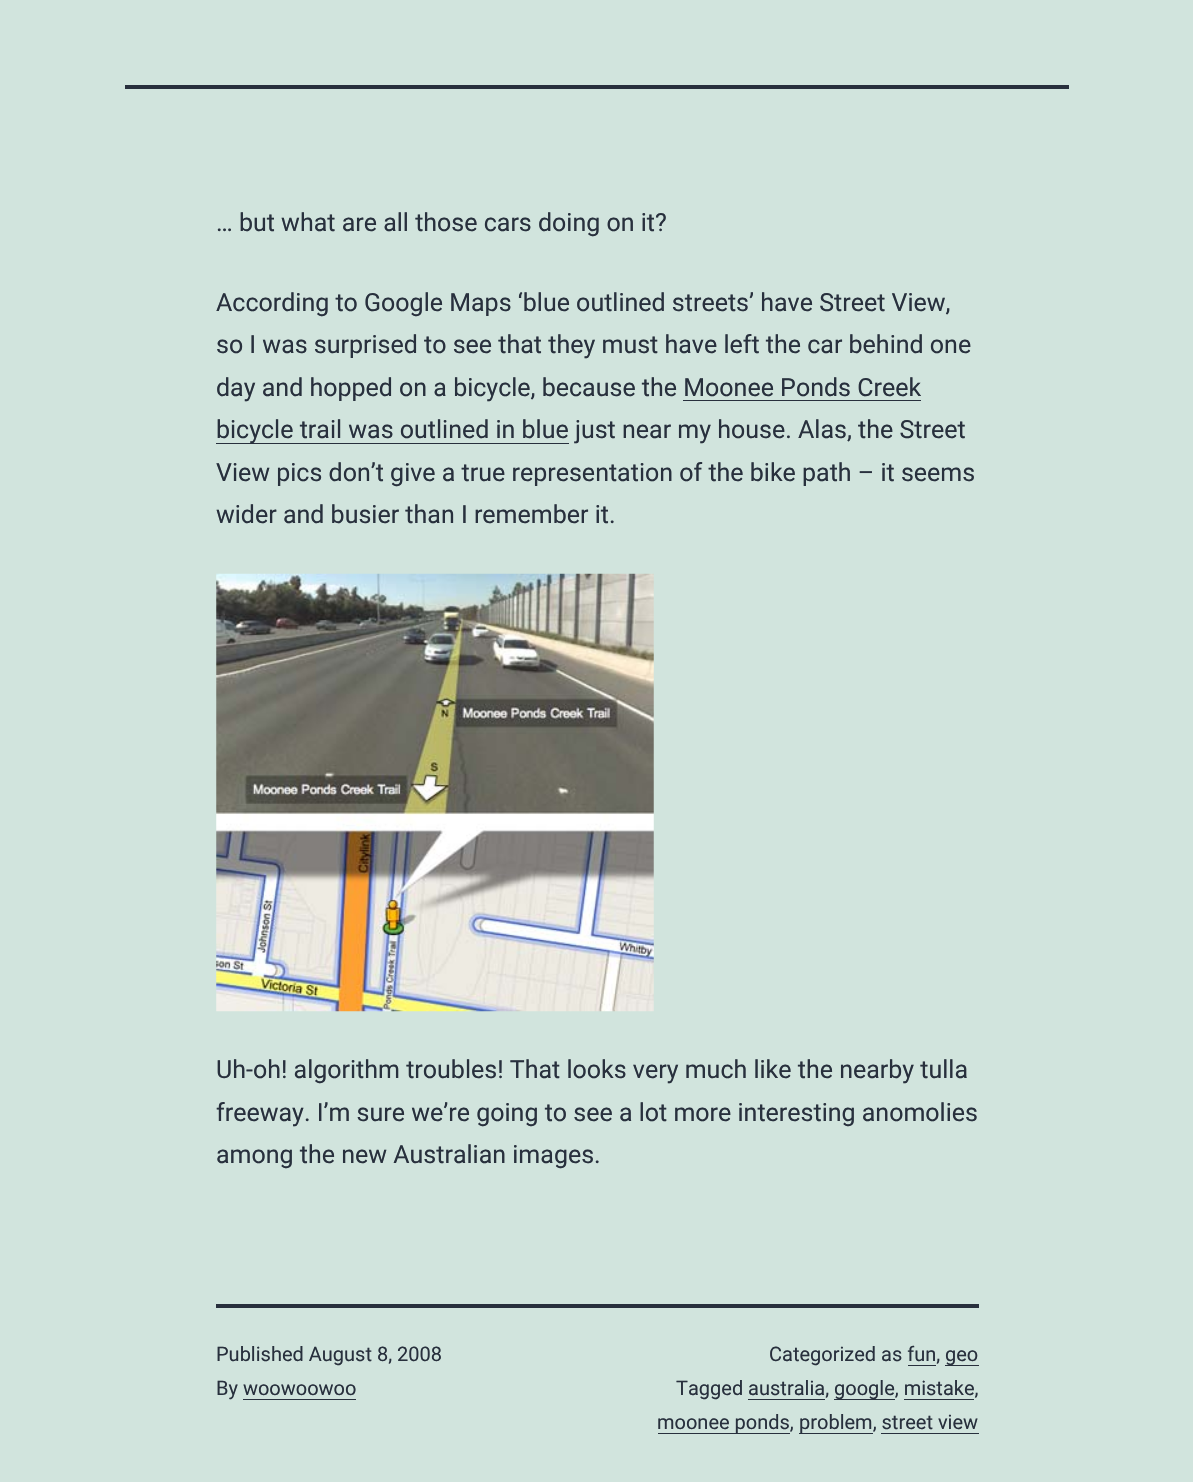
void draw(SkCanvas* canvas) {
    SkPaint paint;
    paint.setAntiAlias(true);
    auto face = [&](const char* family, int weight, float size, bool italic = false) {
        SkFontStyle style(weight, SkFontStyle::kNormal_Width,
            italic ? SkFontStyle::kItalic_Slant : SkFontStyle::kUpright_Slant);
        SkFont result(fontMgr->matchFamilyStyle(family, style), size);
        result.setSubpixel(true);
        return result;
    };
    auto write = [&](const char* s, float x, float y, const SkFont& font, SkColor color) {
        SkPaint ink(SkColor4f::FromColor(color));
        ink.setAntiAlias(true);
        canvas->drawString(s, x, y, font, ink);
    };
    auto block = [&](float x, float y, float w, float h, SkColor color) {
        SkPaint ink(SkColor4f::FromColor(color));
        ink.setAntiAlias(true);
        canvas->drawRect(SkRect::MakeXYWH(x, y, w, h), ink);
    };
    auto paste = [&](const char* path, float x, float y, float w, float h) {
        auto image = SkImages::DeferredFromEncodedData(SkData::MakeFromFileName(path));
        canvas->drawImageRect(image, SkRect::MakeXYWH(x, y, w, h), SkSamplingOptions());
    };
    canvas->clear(SkColorSetRGB(209, 228, 221));
    block(125, 85, 944, 4, SkColorSetRGB(40, 48, 61));
    auto kFont1 = face("Roboto", 400, 25);
    write("… but what are all those cars doing on it?", 216, 231, kFont1, SkColorSetRGB(40, 48, 61));
    write("According to Google Maps ‘blue outlined streets’ have Street View,", 216, 311, kFont1, SkColorSetRGB(40, 48, 61));
    write("so I was surprised to see that they must have left the car behind one", 216, 353, kFont1, SkColorSetRGB(40, 48, 61));
    write("day and hopped on a bicycle, because the Moonee Ponds Creek", 216, 396, kFont1, SkColorSetRGB(40, 48, 61));
    block(216, 443, 353, 1, SkColorSetRGB(40, 48, 61));
    write("bicycle trail was outlined in blue just near my house. Alas, the Street", 216, 438, kFont1, SkColorSetRGB(40, 48, 61));
    block(683, 400, 238, 1, SkColorSetRGB(40, 48, 61));
    write("View pics don’t give a true representation of the bike path – it seems", 216, 481, kFont1, SkColorSetRGB(40, 48, 61));
    write("wider and busier than I remember it.", 216, 523, kFont1, SkColorSetRGB(40, 48, 61));
    paste("pic1.png", 216, 573, 438, 439);
    write("Uh-oh! algorithm troubles! That looks very much like the nearby tulla", 216, 1078, kFont1, SkColorSetRGB(40, 48, 61));
    write("freeway. I’m sure we’re going to see a lot more interesting anomolies", 216, 1121, kFont1, SkColorSetRGB(40, 48, 61));
    write("among the new Australian images.", 216, 1163, kFont1, SkColorSetRGB(40, 48, 61));
    block(216, 1304, 763, 4, SkColorSetRGB(40, 48, 61));
    auto kFont2 = face("Roboto", 400, 20);
    write("Published August 8, 2008", 216, 1361, kFont2, SkColorSetRGB(40, 48, 61));
    write("By woowoowoo", 216, 1395, kFont2, SkColorSetRGB(40, 48, 61));
    block(243, 1399, 113, 1, SkColorSetRGB(40, 48, 61));
    write("Categorized as fun,", 769, 1361, kFont2, SkColorSetRGB(40, 48, 61));
    block(945, 1365, 34, 1, SkColorSetRGB(40, 48, 61));
    write("geo", 945, 1361, kFont2, SkColorSetRGB(40, 48, 61));
    block(908, 1365, 28, 1, SkColorSetRGB(40, 48, 61));
    write("Tagged australia,", 676, 1395, kFont2, SkColorSetRGB(40, 48, 61));
    block(834, 1399, 61, 1, SkColorSetRGB(40, 48, 61));
    write("google, mistake,", 834, 1395, kFont2, SkColorSetRGB(40, 48, 61));
    block(748, 1399, 77, 1, SkColorSetRGB(40, 48, 61));
    block(904, 1399, 70, 1, SkColorSetRGB(40, 48, 61));
    block(658, 1433, 132, 1, SkColorSetRGB(40, 48, 61));
    write("moonee ponds,", 657, 1429, kFont2, SkColorSetRGB(40, 48, 61));
    block(799, 1433, 74, 1, SkColorSetRGB(40, 48, 61));
    write("problem, street view", 799, 1429, kFont2, SkColorSetRGB(40, 48, 61));
    block(881, 1433, 98, 1, SkColorSetRGB(40, 48, 61));
}
